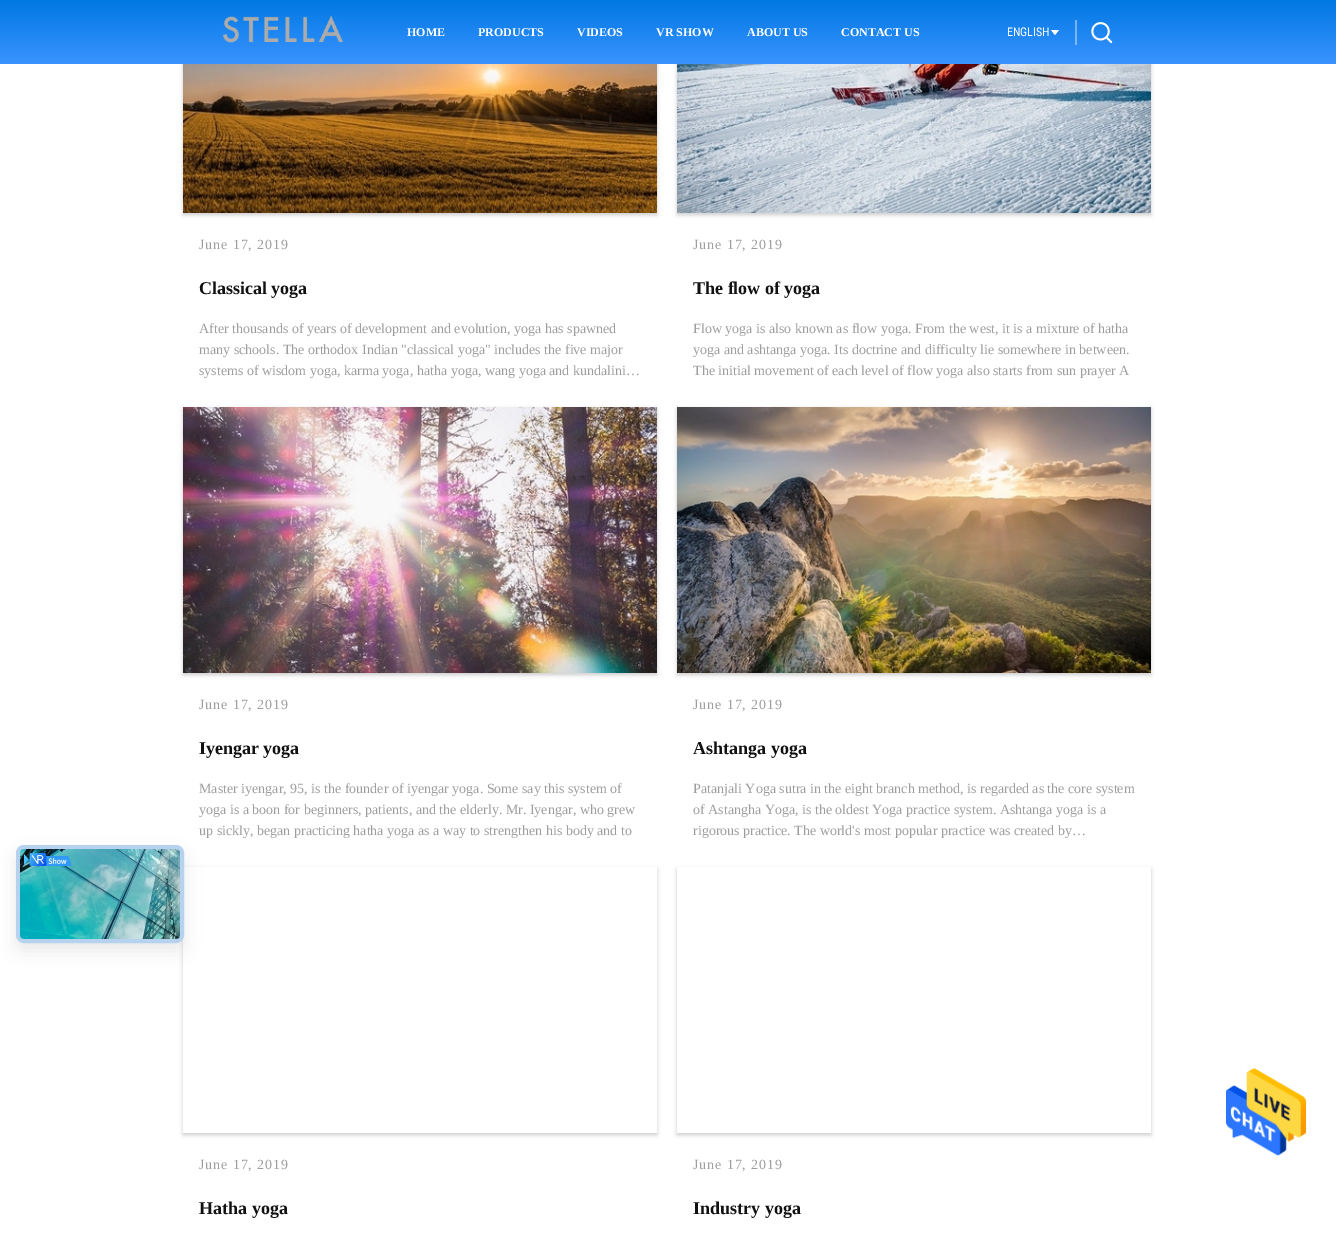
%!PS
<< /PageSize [1336 1233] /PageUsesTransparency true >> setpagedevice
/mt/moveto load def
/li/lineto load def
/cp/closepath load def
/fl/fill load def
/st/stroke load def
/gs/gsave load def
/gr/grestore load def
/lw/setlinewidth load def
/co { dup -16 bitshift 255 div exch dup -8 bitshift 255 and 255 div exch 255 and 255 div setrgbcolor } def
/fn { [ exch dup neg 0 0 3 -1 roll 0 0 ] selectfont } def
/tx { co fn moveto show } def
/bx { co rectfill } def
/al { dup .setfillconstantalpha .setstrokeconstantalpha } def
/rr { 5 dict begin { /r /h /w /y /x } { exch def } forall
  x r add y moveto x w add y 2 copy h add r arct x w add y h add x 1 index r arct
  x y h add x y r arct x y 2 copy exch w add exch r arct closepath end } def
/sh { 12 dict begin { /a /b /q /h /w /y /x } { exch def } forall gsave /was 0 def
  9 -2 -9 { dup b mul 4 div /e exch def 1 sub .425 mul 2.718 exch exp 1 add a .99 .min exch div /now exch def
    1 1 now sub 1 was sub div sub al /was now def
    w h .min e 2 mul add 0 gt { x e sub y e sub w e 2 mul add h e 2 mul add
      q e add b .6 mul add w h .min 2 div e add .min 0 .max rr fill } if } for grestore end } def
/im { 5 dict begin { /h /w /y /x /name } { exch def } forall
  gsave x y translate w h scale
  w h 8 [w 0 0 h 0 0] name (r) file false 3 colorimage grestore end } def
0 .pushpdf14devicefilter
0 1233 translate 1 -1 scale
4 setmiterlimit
0 0 1336 1233 16#FFFFFF bx
16#000000 co
183 -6 474 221 0 2 .2 sh
677 -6 474 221 0 2 .2 sh
gs 0 0 mt 1336 0 li 1336 64 li 0 64 li cp clip newpath
<< /ShadingType 2 /ColorSpace /DeviceRGB /Coords [668 0 668 64] /Extend [true true] /Function << /FunctionType 2 /Domain [0 1] /C0 [0 .471 .886] /C1 [.227 .576 1] /N 1 >> >> shfill gr
(media/1.raw) 222 15 121 28 im
16#FFFFFF co
1051 30 mt 1059 30 li 1055 35 li cp fl
0.4 al
1075 20 2 25 16#FFFFFF bx
1 al
(media/2.raw) 1091 22 22 22 im
16#000000 co
16 853 168 98 8 8 .08 sh
gs
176 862 mt 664 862 li 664 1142 li 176 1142 li cp 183 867 mt 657 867 li 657 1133 li 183 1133 li cp eoclip newpath
183 869 474 266 0 2 .2 sh
gr
16#EEEEEE co
16 845 168 98 8 rr fl
0.24 al
16#0478ED co
4 lw
18 847 164 94 6 rr st
1 al
(media/3.raw) 20 849 160 90 im
(media/4.raw) 24 853 48 13 im
(media/5.raw) 183 64 474 149 im
(media/6.raw) 677 64 474 149 im
16#000000 co
183 409 474 266 0 2 .2 sh
(media/7.raw) 183 407 474 266 im
677 409 474 266 0 2 .2 sh
(media/8.raw) 677 407 474 266 im
gs
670 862 mt 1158 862 li 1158 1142 li 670 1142 li cp 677 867 mt 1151 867 li 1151 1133 li 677 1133 li cp eoclip newpath
677 869 474 266 0 2 .2 sh
gr
(media/9.raw) 1226 1068 80 88 im
(HOME) 407 36 /LiberationSerif-Bold 12 16#FFFFFF tx
(PRODUCTS) 478 36 /LiberationSerif-Bold 12 16#FFFFFF tx
(VIDEOS) 577 36 /LiberationSerif-Bold 12 16#FFFFFF tx
(VR SHOW) 656 36 /LiberationSerif-Bold 12 16#FFFFFF tx
(ABOUT US) 747 36 /LiberationSerif-Bold 12 16#FFFFFF tx
(CONTACT US) 841 36 /LiberationSerif-Bold 12 16#FFFFFF tx
(ENGLISH) 1007 36 /RobotoCondensed-Regular 12 16#FFFFFF tx
/LiberationSerif-Regular 14 fn
16#9D9D9D co
199 249 mt .9 0 (June 17, 2019) ashow
(Classical yoga) 199 294 /LiberationSerif-Bold 18 16#111111 tx
(After thousands of years of development and evolution, yoga has spawned) 199 333 /LiberationSerif-Regular 14 16#9D9D9D tx
(many schools. The orthodox Indian "classical yoga" includes the five major) 199 354 /LiberationSerif-Regular 14 16#9D9D9D tx
(systems of wisdom yoga, karma yoga, hatha yoga, wang yoga and kundalini…) 199 375 /LiberationSerif-Regular 14 16#9D9D9D tx
693 249 mt .9 0 (June 17, 2019) ashow
(The flow of yoga) 693 294 /LiberationSerif-Bold 18 16#111111 tx
(Flow yoga is also known as flow yoga. From the west, it is a mixture of hatha) 693 333 /LiberationSerif-Regular 14 16#9D9D9D tx
(yoga and ashtanga yoga. Its doctrine and difficulty lie somewhere in between.) 693 354 /LiberationSerif-Regular 14 16#9D9D9D tx
(The initial movement of each level of flow yoga also starts from sun prayer A) 693 375 /LiberationSerif-Regular 14 16#9D9D9D tx
199 709 mt .9 0 (June 17, 2019) ashow
(Iyengar yoga) 199 754 /LiberationSerif-Bold 18 16#111111 tx
(Master iyengar, 95, is the founder of iyengar yoga. Some say this system of) 199 793 /LiberationSerif-Regular 14 16#9D9D9D tx
(yoga is a boon for beginners, patients, and the elderly. Mr. Iyengar, who grew) 199 814 /LiberationSerif-Regular 14 16#9D9D9D tx
(up sickly, began practicing hatha yoga as a way to strengthen his body and to) 199 835 /LiberationSerif-Regular 14 16#9D9D9D tx
693 709 mt .9 0 (June 17, 2019) ashow
(Ashtanga yoga) 693 754 /LiberationSerif-Bold 18 16#111111 tx
(Patanjali Yoga sutra in the eight branch method, is regarded as the core system) 693 793 /LiberationSerif-Regular 14 16#9D9D9D tx
(of Astangha Yoga, is the oldest Yoga practice system. Ashtanga yoga is a) 693 814 /LiberationSerif-Regular 14 16#9D9D9D tx
(rigorous practice. The world's most popular practice was created by…) 693 835 /LiberationSerif-Regular 14 16#9D9D9D tx
199 1169 mt .9 0 (June 17, 2019) ashow
(Hatha yoga) 199 1214 /LiberationSerif-Bold 18 16#111111 tx
/LiberationSerif-Regular 14 fn
16#9D9D9D co
693 1169 mt .9 0 (June 17, 2019) ashow
(Industry yoga) 693 1214 /LiberationSerif-Bold 18 16#111111 tx
.poppdf14devicefilter showpage
